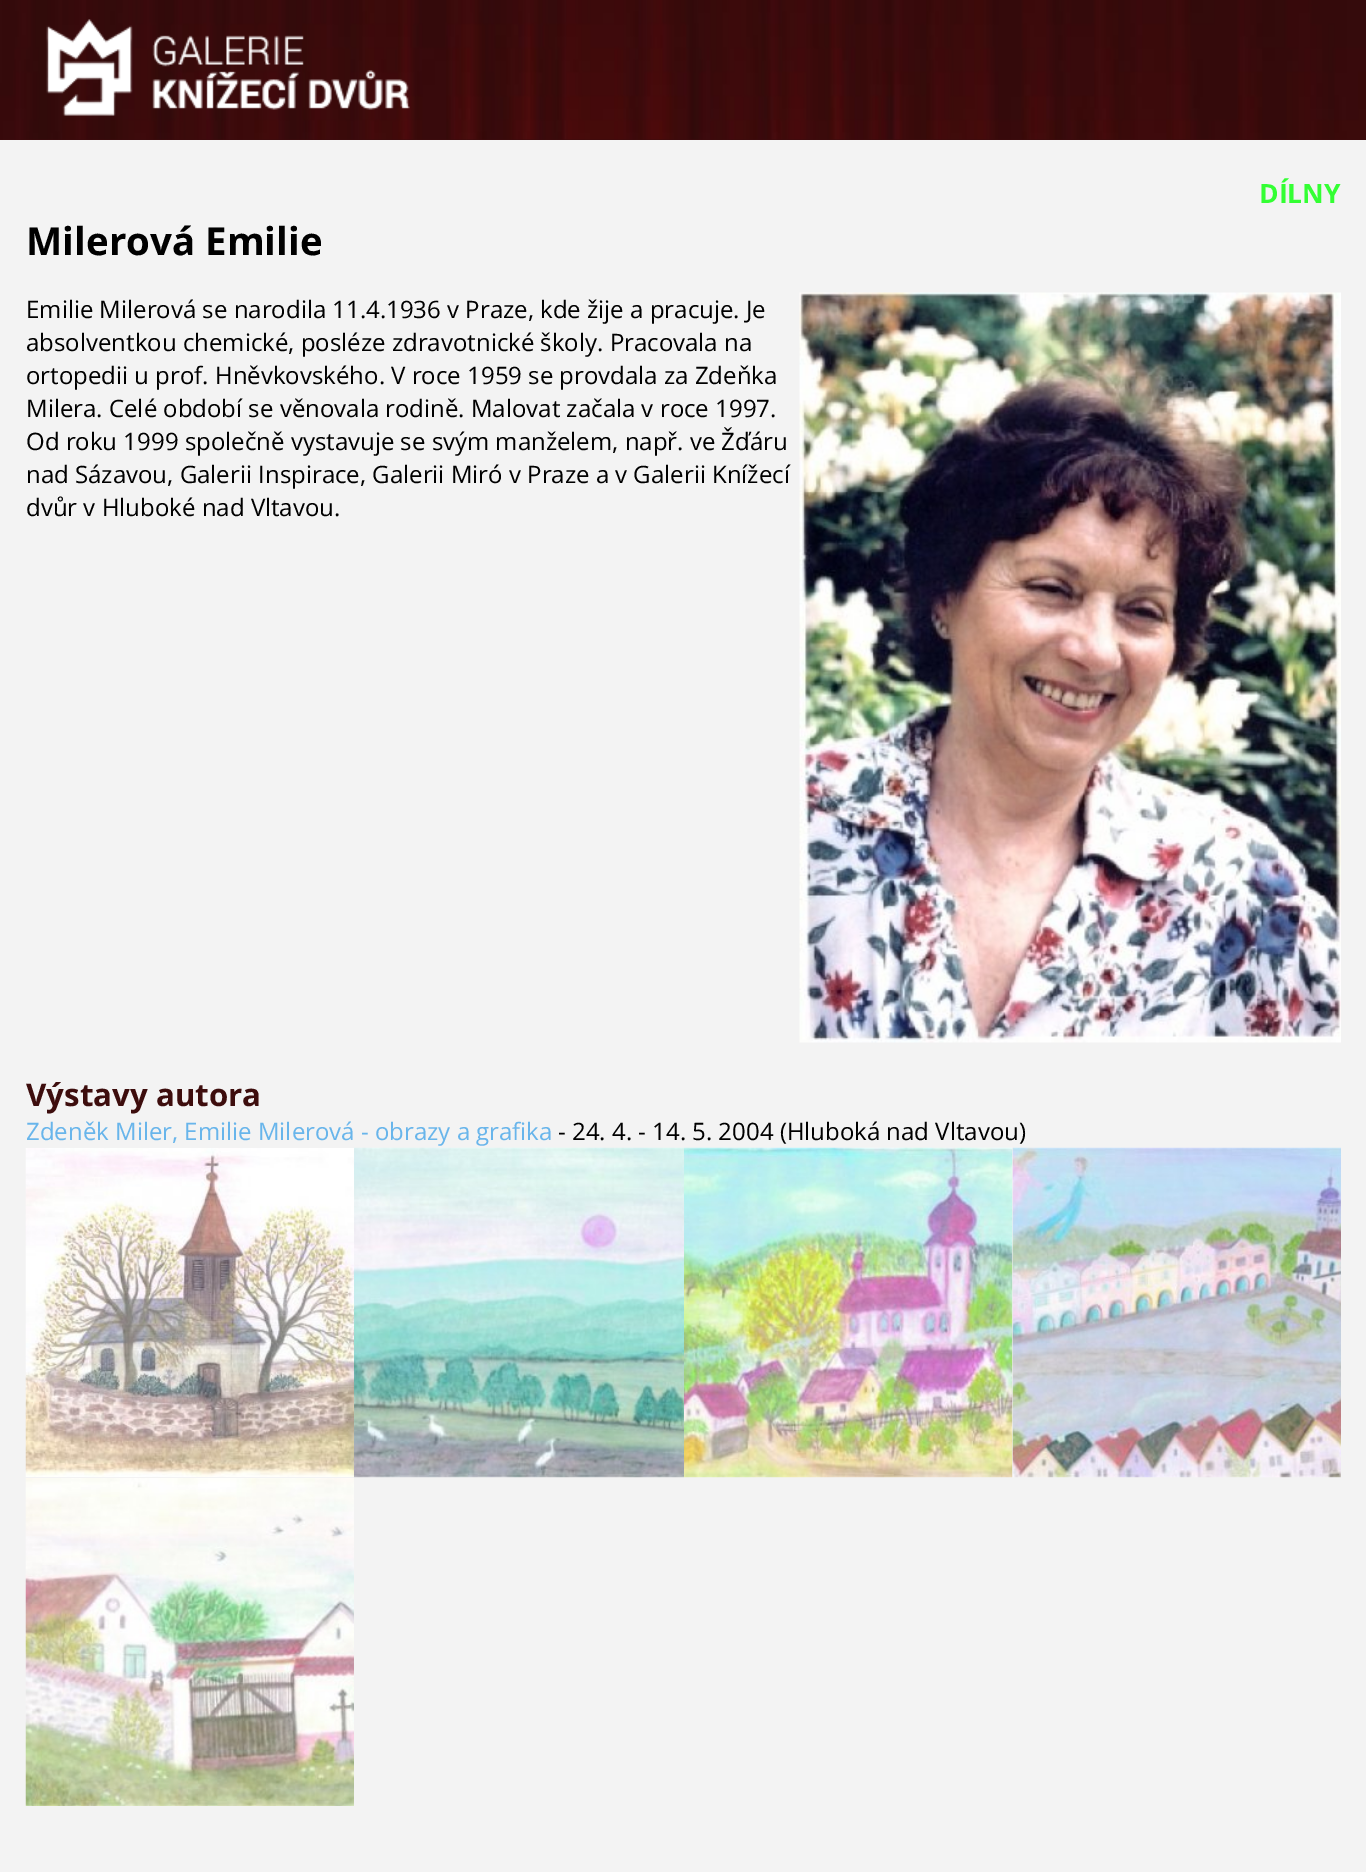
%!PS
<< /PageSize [1366 1872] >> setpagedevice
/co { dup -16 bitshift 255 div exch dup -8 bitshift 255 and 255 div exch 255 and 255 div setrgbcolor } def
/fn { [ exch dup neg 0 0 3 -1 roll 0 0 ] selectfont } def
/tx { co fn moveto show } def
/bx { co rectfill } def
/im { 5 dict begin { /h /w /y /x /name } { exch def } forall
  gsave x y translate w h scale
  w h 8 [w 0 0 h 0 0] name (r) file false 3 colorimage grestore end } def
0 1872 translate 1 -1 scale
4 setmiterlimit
0 0 1366 1872 16#3C0D0E bx
(media/1.raw) 0 0 1366 140 im
(media/2.raw) 46 19 364 97 im
0 140 1366 1732 16#F3F3F3 bx
(media/3.raw) 799 292 542 751 im
(media/4.raw) 25 1148 329 329 im
(media/5.raw) 354 1147 330 331 im
(media/6.raw) 684 1147 329 331 im
(media/7.raw) 1012 1147 329 331 im
(media/8.raw) 25 1478 329 328 im
(DÍLNY) 1259 203 /OpenSans-Bold 26.5 16#33FF33 tx
(Milerová Emilie) 26 255 /OpenSans-Bold 38.5 16#000000 tx
(Emilie Milerová se narodila 11.4.1936 v Praze, kde žije a pracuje. Je) 26 318 /OpenSans-Regular 24 16#000000 tx
(absolventkou chemické, posléze zdravotnické školy. Pracovala na) 26 351 /OpenSans-Regular 24 16#000000 tx
(ortopedii u prof. Hněvkovského. V roce 1959 se provdala za Zdeňka) 26 384 /OpenSans-Regular 24 16#000000 tx
(Milera. Celé období se věnovala rodině. Malovat začala v roce 1997.) 26 417 /OpenSans-Regular 24 16#000000 tx
(Od roku 1999 společně vystavuje se svým manželem, např. ve Žďáru) 26 450 /OpenSans-Regular 24 16#000000 tx
(nad Sázavou, Galerii Inspirace, Galerii Miró v Praze a v Galerii Knížecí) 26 483 /OpenSans-Regular 24 16#000000 tx
(dvůr v Hluboké nad Vltavou.) 26 516 /OpenSans-Regular 24 16#000000 tx
(Výstavy autora) 26 1106 /OpenSans-Bold 31.25 16#3D0D0D tx
(Zdeněk Miler, Emilie Milerová - obrazy a grafika) 26 1140 /OpenSans-Regular 24 16#68B5EB tx
(- 24. 4. - 14. 5. 2004 \(Hluboká nad Vltavou\)) 558 1140 /OpenSans-Regular 24 16#000000 tx
showpage
